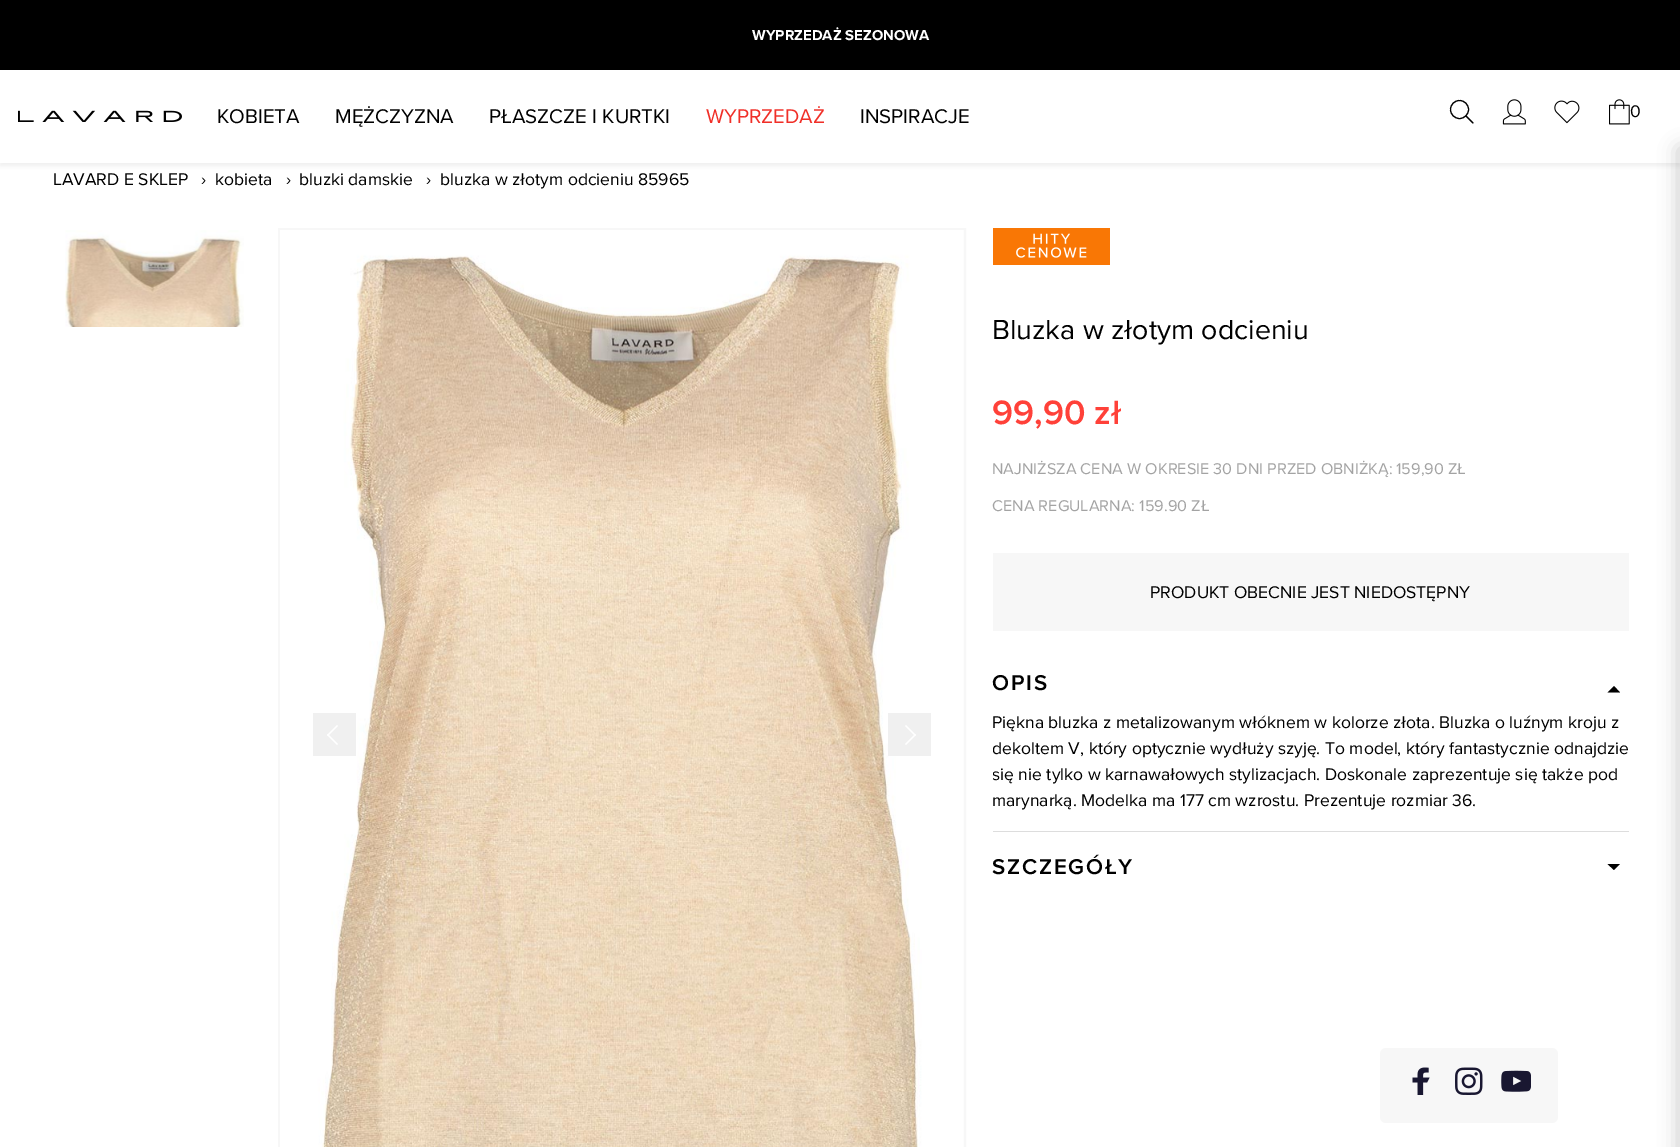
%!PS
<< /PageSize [1680 1147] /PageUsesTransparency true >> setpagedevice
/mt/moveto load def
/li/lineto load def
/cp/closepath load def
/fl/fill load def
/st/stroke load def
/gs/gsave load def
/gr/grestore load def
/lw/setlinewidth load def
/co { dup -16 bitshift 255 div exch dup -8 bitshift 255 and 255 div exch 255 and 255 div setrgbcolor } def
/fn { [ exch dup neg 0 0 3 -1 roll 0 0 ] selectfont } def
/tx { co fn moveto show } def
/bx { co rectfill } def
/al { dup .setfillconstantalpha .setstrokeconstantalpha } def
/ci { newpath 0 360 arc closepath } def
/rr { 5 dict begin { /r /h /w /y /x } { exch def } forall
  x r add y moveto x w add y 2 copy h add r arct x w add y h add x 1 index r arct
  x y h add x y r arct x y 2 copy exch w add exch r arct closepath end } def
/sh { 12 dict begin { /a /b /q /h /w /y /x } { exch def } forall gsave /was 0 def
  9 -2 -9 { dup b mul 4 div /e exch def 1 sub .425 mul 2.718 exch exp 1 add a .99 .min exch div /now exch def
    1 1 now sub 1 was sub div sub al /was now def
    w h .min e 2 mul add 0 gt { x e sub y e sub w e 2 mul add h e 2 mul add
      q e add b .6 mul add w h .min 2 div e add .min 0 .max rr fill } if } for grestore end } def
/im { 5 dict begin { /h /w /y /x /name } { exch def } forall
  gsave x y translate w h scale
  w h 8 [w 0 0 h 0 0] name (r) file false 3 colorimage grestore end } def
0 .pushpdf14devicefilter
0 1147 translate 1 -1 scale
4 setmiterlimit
0 0 1680 1147 16#FFFFFF bx
gs
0 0 mt 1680 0 li 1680 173 li 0 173 li cp 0 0 mt 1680 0 li 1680 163 li 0 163 li cp eoclip newpath
16#B1B1B1 co
0 4 1680 162 0 2 .2 sh
gr
0.97 al
0 162 1680 1 16#FFFFFF bx
1 al
0 0 1680 70 16#000000 bx
(media/1.raw) 18 110 164 12 im
1.1 lw
1 setlinecap
1 setlinejoin
1473 123 mt 1466 116 li st
0 setlinecap
0 setlinejoin
1459.5 109.5 9 ci st
(media/2.raw) 1502 99 24 26 im
(media/3.raw) 1554 100 26 24 im
(media/4.raw) 1609 99 21 26 im
1678 148 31 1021 0 9.5 .21 sh
(media/5.raw) 65 230 179 97 im
16#F7F7F7 co
3 lw
279.5 229.5 685 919 rectstroke
(media/6.raw) 280 230 684 917 im
313 713 43 43 16#F0F0F0 bx
16#FFFFFF co
327 735 mt 337 725 li 338 726 li 328 736 li cp fl
327 735 mt 328 734 li 338 744 li 337 745 li cp fl
888 713 43 43 16#F0F0F0 bx
16#FFFFFF co
906 725 mt 916 735 li 915 736 li 905 726 li cp fl
915 734 mt 916 735 li 906 745 li 905 744 li cp fl
(media/7.raw) 993 228 117 37 im
993 553 636 78 16#F7F7F7 bx
993 831 636 1 16#DDDDDD bx
16#000000 co
1620 692.5 mt 1607.5 692.5 li 1614 686 li cp fl
1607.5 864 mt 1620 864 li 1614 870 li cp fl
16#F7F7F7 co
1380 1048 178 75 6 rr fl
(media/8.raw) 1412 1067 18 28 im
(media/9.raw) 1455 1067 28 28 im
(media/10.raw) 1501 1070 30 22 im
(WYPRZEDAŻ SEZONOWA) 752 40 /ProximaNova-Bold 14.9 16#FFFFFF tx
(KOBIETA) 217 123 /ProximaNova-Regular 20.5 16#000000 tx
(MĘŻCZYZNA) 335 123 /ProximaNova-Regular 20.5 16#000000 tx
(PŁASZCZE I KURTKI) 489 123 /ProximaNova-Regular 20.5 16#000000 tx
(WYPRZEDAŻ) 706 123 /ProximaNova-Regular 20.5 16#F02F28 tx
(INSPIRACJE) 860 123 /ProximaNova-Regular 20.5 16#000000 tx
(0) 1630 117 /ProximaNova-Regular 17.5 16#000000 tx
(LAVARD E SKLEP) 53 185 /ProximaNova-Regular 17.5 16#000000 tx
(›) 201 185 /ProximaNova-Regular 17.5 16#000000 tx
(kobieta) 215 185 /ProximaNova-Regular 17.5 16#000000 tx
(›) 286 185 /ProximaNova-Regular 17.5 16#000000 tx
(bluzki damskie) 299 185 /ProximaNova-Regular 17.5 16#000000 tx
(›) 426 185 /ProximaNova-Regular 17.5 16#000000 tx
(bluzka w złotym odcieniu 85965) 440 185 /ProximaNova-Regular 17.5 16#000000 tx
(Bluzka w złotym odcieniu) 992 339 /ProximaNova-Regular 28.5 16#000000 tx
(99,90 zł) 992 424 /ProximaNova-SemiBold 35 16#FF4139 tx
(NAJNIŻSZA CENA W OKRESIE 30 DNI PRZED OBNIŻKĄ:) 992 474 /ProximaNova-Regular 16.2 16#A3A3A3 tx
(159,90 ZŁ) 1396 474 /ProximaNova-Regular 16.2 16#A3A3A3 tx
(CENA REGULARNA: 159.90 ZŁ) 992 511 /ProximaNova-Regular 16.2 16#A3A3A3 tx
(PRODUKT OBECNIE JEST NIEDOSTĘPNY) 1150 598 /ProximaNova-Regular 17.5 16#000000 tx
/ProximaNova-SemiBold 22.25 fn
992 690 mt 1.75 0 (OPIS) ashow
(Piękna bluzka z metalizowanym włóknem w kolorze złota. Bluzka o luźnym kroju z) 992 728 /ProximaNova-Regular 17.5 16#000000 tx
gs
993 700 636 114 rectclip
(dekoltem V, który optycznie wydłuży szyję. To model, który fantastycznie odnajdzie) 992 754 /ProximaNova-Regular 17.5 16#000000 tx
(się nie tylko w karnawałowych stylizacjach. Doskonale zaprezentuje się także pod) 992 780 /ProximaNova-Regular 17.5 16#000000 tx
gr
(marynarką. Modelka ma 177 cm wzrostu. Prezentuje rozmiar 36.) 992 806 /ProximaNova-Regular 17.5 16#000000 tx
/ProximaNova-SemiBold 22.25 fn
992 874 mt 1.75 0 (SZCZEGÓŁY) ashow
.poppdf14devicefilter showpage
